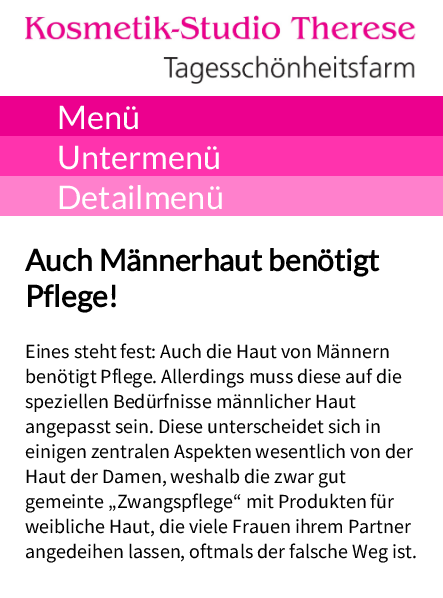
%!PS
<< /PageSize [443 598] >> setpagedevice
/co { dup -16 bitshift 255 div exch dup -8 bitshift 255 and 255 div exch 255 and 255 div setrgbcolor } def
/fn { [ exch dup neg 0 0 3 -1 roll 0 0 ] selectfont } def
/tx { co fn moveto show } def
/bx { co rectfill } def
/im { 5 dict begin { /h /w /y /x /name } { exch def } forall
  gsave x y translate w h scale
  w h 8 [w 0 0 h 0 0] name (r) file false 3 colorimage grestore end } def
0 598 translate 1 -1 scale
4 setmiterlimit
0 0 443 598 16#FFFFFF bx
(media/1.raw) 25 15 391 69 im
0 96 443 40 16#EC008E bx
0 136 443 40 16#FF33AD bx
0 176 443 40 16#FF80CC bx
(Menü) 57 129 /Lato-Regular 32.5 16#FFFFFF tx
(Untermenü) 57 169 /Lato-Regular 32.5 16#FFFFFF tx
(Detailmenü) 57 209 /Lato-Regular 32.5 16#FFFFFF tx
(Auch Männerhaut benötigt) 25 271 /Lato-Bold 30 16#000000 tx
(Pflege!) 25 307 /Lato-Bold 30 16#000000 tx
(Eines steht fest: Auch die Haut von Männern) 25 358 /SourceSansPro-Regular 20 16#000000 tx
(benötigt Pflege. Allerdings muss diese auf die) 25 383 /SourceSansPro-Regular 20 16#000000 tx
(speziellen Bedürfnisse männlicher Haut) 25 408 /SourceSansPro-Regular 20 16#000000 tx
(angepasst sein. Diese unterscheidet sich in) 25 433 /SourceSansPro-Regular 20 16#000000 tx
(einigen zentralen Aspekten wesentlich von der) 25 458 /SourceSansPro-Regular 20 16#000000 tx
(Haut der Damen, weshalb die zwar gut) 25 483 /SourceSansPro-Regular 20 16#000000 tx
(gemeinte „Zwangspflege“ mit Produkten für) 25 508 /SourceSansPro-Regular 20 16#000000 tx
(weibliche Haut, die viele Frauen ihrem Partner) 25 533 /SourceSansPro-Regular 20 16#000000 tx
(angedeihen lassen, oftmals der falsche Weg ist.) 25 558 /SourceSansPro-Regular 20 16#000000 tx
showpage
